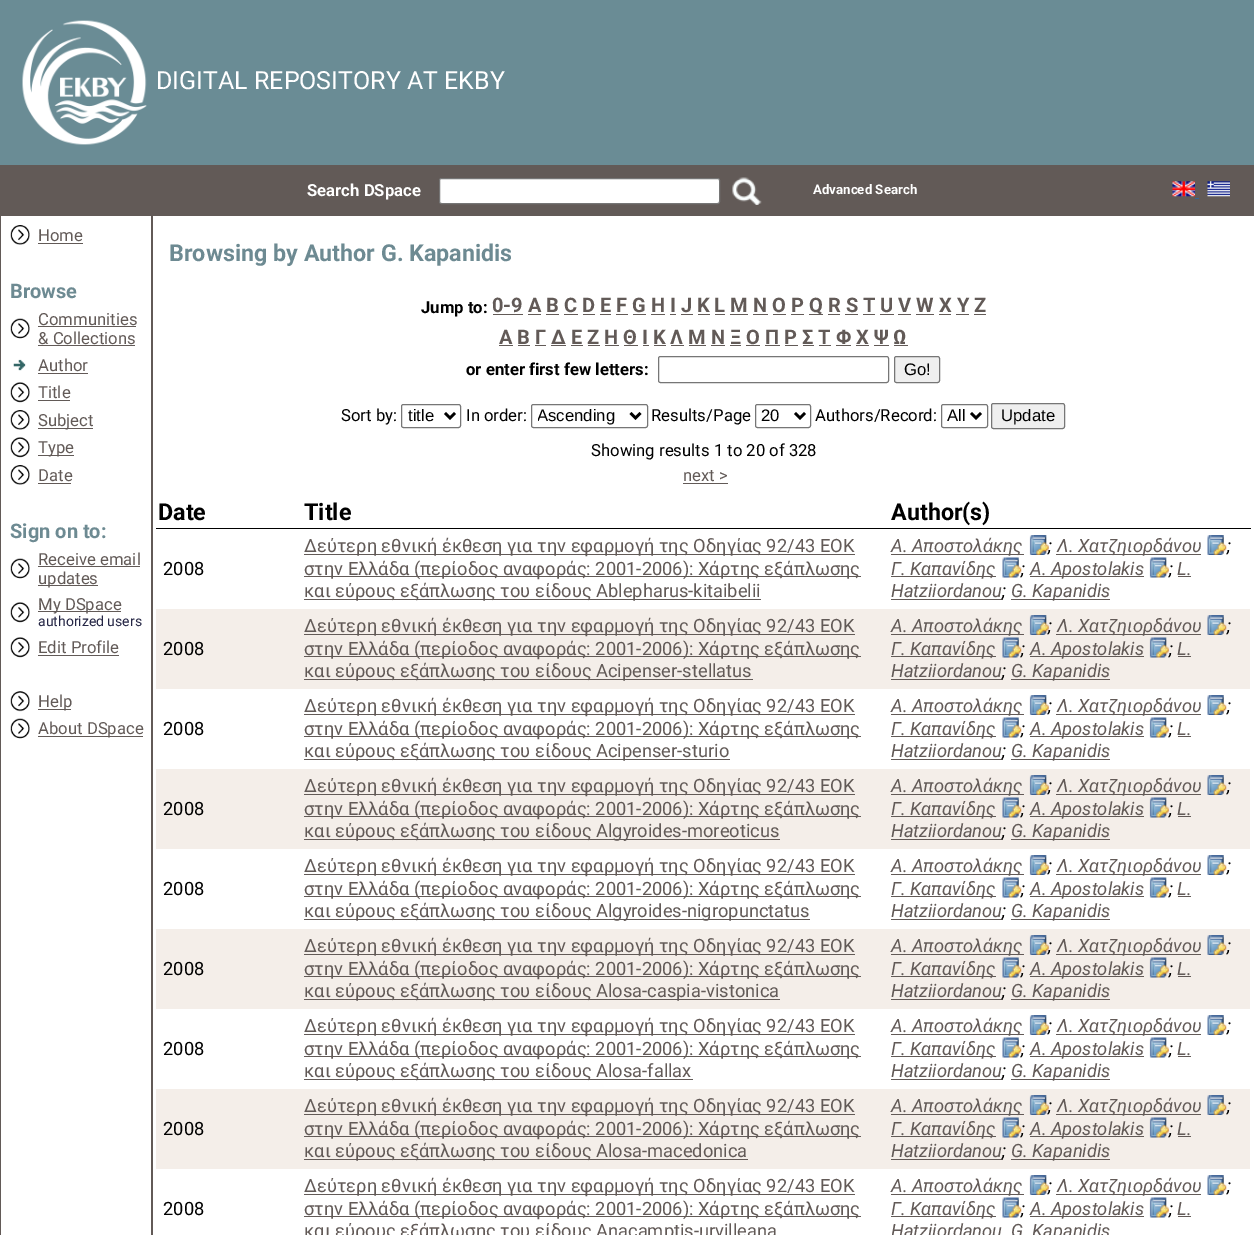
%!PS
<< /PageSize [1254 1235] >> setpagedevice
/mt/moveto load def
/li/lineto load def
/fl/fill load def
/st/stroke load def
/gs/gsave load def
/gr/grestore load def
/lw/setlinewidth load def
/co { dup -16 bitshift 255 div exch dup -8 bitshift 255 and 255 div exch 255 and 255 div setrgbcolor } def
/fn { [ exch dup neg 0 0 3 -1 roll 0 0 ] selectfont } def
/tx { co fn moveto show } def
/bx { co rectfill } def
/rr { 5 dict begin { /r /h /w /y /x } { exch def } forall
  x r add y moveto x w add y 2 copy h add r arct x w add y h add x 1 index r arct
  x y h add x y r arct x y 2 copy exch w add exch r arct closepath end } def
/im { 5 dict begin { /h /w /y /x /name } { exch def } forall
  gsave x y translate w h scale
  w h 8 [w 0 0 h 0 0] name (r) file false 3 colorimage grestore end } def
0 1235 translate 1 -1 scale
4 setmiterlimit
0 0 1254 1235 16#625A57 bx
0 0 1254 165 16#6A8C95 bx
(media/1.raw) 22 20 125 125 im
16#FFFFFF co
439.5 178.5 280 25 2 rr gs fl gr
16#767676 co
st
(media/2.raw) 732 177 30 28 im
(media/3.raw) 1172 181 23 16 im
(media/4.raw) 1207 181 23 16 im
1195 198 4 1 16#336699 bx
1 216 150 1019 16#FFFFFF bx
(media/5.raw) 10 225 20 20 im
38 243 45 1 16#625A57 bx
(media/6.raw) 10 318 20 21 im
38 326 98 1 16#625A57 bx
38 345 97 1 16#625A57 bx
(media/7.raw) 13 359 13 12 im
38 373 50 1 16#625A57 bx
(media/8.raw) 10 382 20 21 im
38 400 32 1 16#625A57 bx
(media/5.raw) 10 410 20 20 im
38 428 55 1 16#625A57 bx
(media/8.raw) 10 437 20 21 im
38 455 36 1 16#625A57 bx
(media/5.raw) 10 465 20 20 im
38 483 33 1 16#625A57 bx
(media/6.raw) 10 558 20 21 im
38 566 102 1 16#625A57 bx
38 585 60 1 16#625A57 bx
(media/8.raw) 10 602 20 21 im
38 611 83 1 16#625A57 bx
(media/8.raw) 10 637 20 21 im
38 655 81 1 16#625A57 bx
(media/9.raw) 10 691 20 21 im
38 709 33 1 16#625A57 bx
(media/6.raw) 10 718 20 21 im
38 736 105 1 16#625A57 bx
153 216 1101 1019 16#FFFFFF bx
493 314 30 1 16#625A57 bx
809 314 14 1 16#625A57 bx
528 314 13 1 16#625A57 bx
546 314 13 1 16#625A57 bx
564 314 14 1 16#625A57 bx
583 314 12 1 16#625A57 bx
600 314 11 1 16#625A57 bx
616 314 12 1 16#625A57 bx
633 314 13 1 16#625A57 bx
651 314 14 1 16#625A57 bx
670 314 6 1 16#625A57 bx
681 314 12 1 16#625A57 bx
698 314 12 1 16#625A57 bx
715 314 10 1 16#625A57 bx
730 314 18 1 16#625A57 bx
753 314 15 1 16#625A57 bx
773 314 13 1 16#625A57 bx
791 314 13 1 16#625A57 bx
828 314 12 1 16#625A57 bx
845 314 13 1 16#625A57 bx
863 314 12 1 16#625A57 bx
880 314 14 1 16#625A57 bx
898 314 13 1 16#625A57 bx
916 314 18 1 16#625A57 bx
939 314 12 1 16#625A57 bx
956 314 13 1 16#625A57 bx
974 314 12 1 16#625A57 bx
499 345 14 1 16#625A57 bx
518 345 12 1 16#625A57 bx
535 345 11 1 16#625A57 bx
551 345 15 1 16#625A57 bx
571 345 12 1 16#625A57 bx
588 345 12 1 16#625A57 bx
605 345 14 1 16#625A57 bx
624 345 14 1 16#625A57 bx
643 345 6 1 16#625A57 bx
654 345 12 1 16#625A57 bx
671 345 13 1 16#625A57 bx
689 345 17 1 16#625A57 bx
711 345 14 1 16#625A57 bx
730 345 11 1 16#625A57 bx
746 345 14 1 16#625A57 bx
765 345 15 1 16#625A57 bx
785 345 13 1 16#625A57 bx
803 345 11 1 16#625A57 bx
819 345 12 1 16#625A57 bx
836 345 15 1 16#625A57 bx
856 345 13 1 16#625A57 bx
874 345 15 1 16#625A57 bx
894 345 14 1 16#625A57 bx
16#767676 co
658.5 356.5 230 26 2 rr st
16#EFEFEF co
894.5 356.5 45 26 2 rr gs fl gr
16#767676 co
st
401.5 404.5 59 23 2 rr st
16#000000 co
2.5 lw
445 413 mt 450 418 li 455 413 li st
16#767676 co
1 lw
531.5 404.5 116 23 2 rr st
16#000000 co
2.5 lw
630.5 413 mt 635.5 418 li 640.5 413 li st
16#767676 co
1 lw
755.5 404.5 55 23 2 rr st
16#000000 co
2.5 lw
795 413 mt 800 418 li 805 413 li st
16#767676 co
1 lw
941.5 404.5 46 23 2 rr st
16#000000 co
2.5 lw
971 413 mt 976 418 li 981 413 li st
16#EFEFEF co
991.5 403.5 73 25 2 rr gs fl gr
16#767676 co
1 lw
st
683 483 45 1 16#625A57 bx
156 528 1095 1 16#000000 bx
304 554 551 1 16#625A57 bx
304 576 557 1 16#625A57 bx
304 599 457 1 16#625A57 bx
891 554 133 1 16#625A57 bx
(media/10.raw) 1029 535 20 20 im
1056 554 145 1 16#625A57 bx
(media/11.raw) 1207 535 20 20 im
891 576 105 1 16#625A57 bx
(media/12.raw) 1002 557 20 21 im
1030 576 114 1 16#625A57 bx
(media/13.raw) 1149 557 20 21 im
1178 576 13 1 16#625A57 bx
891 599 112 1 16#625A57 bx
1011 599 99 1 16#625A57 bx
156 609 1094 80 16#F4EEE9 bx
304 634 551 1 16#625A57 bx
304 656 557 1 16#625A57 bx
304 679 449 1 16#625A57 bx
891 634 133 1 16#625A57 bx
(media/14.raw) 1029 615 20 20 im
1056 634 145 1 16#625A57 bx
(media/15.raw) 1207 615 20 20 im
891 656 105 1 16#625A57 bx
(media/16.raw) 1002 637 20 21 im
1030 656 114 1 16#625A57 bx
(media/17.raw) 1149 637 20 21 im
1178 656 13 1 16#625A57 bx
891 679 112 1 16#625A57 bx
1011 679 99 1 16#625A57 bx
304 714 551 1 16#625A57 bx
304 736 557 1 16#625A57 bx
304 759 426 1 16#625A57 bx
891 714 133 1 16#625A57 bx
(media/10.raw) 1029 695 20 20 im
1056 714 145 1 16#625A57 bx
(media/11.raw) 1207 695 20 20 im
891 736 105 1 16#625A57 bx
(media/12.raw) 1002 717 20 21 im
1030 736 114 1 16#625A57 bx
(media/13.raw) 1149 717 20 21 im
1178 736 13 1 16#625A57 bx
891 759 112 1 16#625A57 bx
1011 759 99 1 16#625A57 bx
156 769 1094 80 16#F4EEE9 bx
304 794 551 1 16#625A57 bx
304 816 557 1 16#625A57 bx
304 839 476 1 16#625A57 bx
891 794 133 1 16#625A57 bx
(media/18.raw) 1029 775 20 20 im
1056 794 145 1 16#625A57 bx
(media/19.raw) 1207 775 20 20 im
891 816 105 1 16#625A57 bx
(media/16.raw) 1002 797 20 21 im
1030 816 114 1 16#625A57 bx
(media/17.raw) 1149 797 20 21 im
1178 816 13 1 16#625A57 bx
891 839 112 1 16#625A57 bx
1011 839 99 1 16#625A57 bx
304 874 551 1 16#625A57 bx
304 896 557 1 16#625A57 bx
304 919 506 1 16#625A57 bx
891 874 133 1 16#625A57 bx
(media/10.raw) 1029 855 20 20 im
1056 874 145 1 16#625A57 bx
(media/11.raw) 1207 855 20 20 im
891 896 105 1 16#625A57 bx
(media/12.raw) 1002 877 20 21 im
1030 896 114 1 16#625A57 bx
(media/13.raw) 1149 877 20 21 im
1178 896 13 1 16#625A57 bx
891 919 112 1 16#625A57 bx
1011 919 99 1 16#625A57 bx
156 929 1094 80 16#F4EEE9 bx
304 954 551 1 16#625A57 bx
304 976 557 1 16#625A57 bx
304 999 476 1 16#625A57 bx
891 954 133 1 16#625A57 bx
(media/14.raw) 1029 935 20 20 im
1056 954 145 1 16#625A57 bx
(media/15.raw) 1207 935 20 20 im
891 976 105 1 16#625A57 bx
(media/16.raw) 1002 957 20 21 im
1030 976 114 1 16#625A57 bx
(media/17.raw) 1149 957 20 21 im
1178 976 13 1 16#625A57 bx
891 999 112 1 16#625A57 bx
1011 999 99 1 16#625A57 bx
304 1034 551 1 16#625A57 bx
304 1056 557 1 16#625A57 bx
304 1079 389 1 16#625A57 bx
891 1034 133 1 16#625A57 bx
(media/10.raw) 1029 1015 20 20 im
1056 1034 145 1 16#625A57 bx
(media/11.raw) 1207 1015 20 20 im
891 1056 105 1 16#625A57 bx
(media/12.raw) 1002 1037 20 21 im
1030 1056 114 1 16#625A57 bx
(media/13.raw) 1149 1037 20 21 im
1178 1056 13 1 16#625A57 bx
891 1079 112 1 16#625A57 bx
1011 1079 99 1 16#625A57 bx
156 1089 1094 80 16#F4EEE9 bx
304 1114 551 1 16#625A57 bx
304 1136 557 1 16#625A57 bx
304 1159 444 1 16#625A57 bx
891 1114 133 1 16#625A57 bx
(media/14.raw) 1029 1095 20 20 im
1056 1114 145 1 16#625A57 bx
(media/15.raw) 1207 1095 20 20 im
891 1136 105 1 16#625A57 bx
(media/16.raw) 1002 1117 20 21 im
1030 1136 114 1 16#625A57 bx
(media/17.raw) 1149 1117 20 21 im
1178 1136 13 1 16#625A57 bx
891 1159 112 1 16#625A57 bx
1011 1159 99 1 16#625A57 bx
304 1194 551 1 16#625A57 bx
304 1216 557 1 16#625A57 bx
891 1194 133 1 16#625A57 bx
(media/20.raw) 1029 1175 20 20 im
1056 1194 145 1 16#625A57 bx
(media/21.raw) 1207 1175 20 20 im
891 1216 105 1 16#625A57 bx
(media/12.raw) 1002 1197 20 21 im
1030 1216 114 1 16#625A57 bx
(media/13.raw) 1149 1197 20 21 im
1178 1216 13 1 16#625A57 bx
(DIGITAL REPOSITORY AT EKBY) 156 89 /Roboto-Regular 25 16#FFFFFF tx
(Search DSpace) 307 196 /Roboto-Bold 16.7 16#FFFFFF tx
(Advanced Search) 813 194 /Roboto-Bold 13.25 16#FFFFFF tx
(Home) 38 241 /Roboto-Regular 16.7 16#625A57 tx
(Browse) 10 298 /Roboto-Bold 20 16#6D8A92 tx
(Communities) 38 325 /Roboto-Regular 16.7 16#625A57 tx
(& Collections) 38 344 /Roboto-Regular 16.7 16#625A57 tx
(Author) 38 371 /Roboto-Regular 16.7 16#625A57 tx
(Title) 38 398 /Roboto-Regular 16.7 16#625A57 tx
(Subject) 38 426 /Roboto-Regular 16.7 16#625A57 tx
(Type) 38 453 /Roboto-Regular 16.7 16#625A57 tx
(Date) 38 481 /Roboto-Regular 16.7 16#625A57 tx
(Sign on to:) 10 538 /Roboto-Bold 20 16#6D8A92 tx
(Receive email) 38 565 /Roboto-Regular 16.7 16#625A57 tx
(updates) 38 584 /Roboto-Regular 16.7 16#625A57 tx
(My DSpace) 38 610 /Roboto-Regular 16.7 16#625A57 tx
(authorized users) 38 626 /Roboto-Regular 14 16#252645 tx
(Edit Profile) 38 653 /Roboto-Regular 16.7 16#625A57 tx
(Help) 38 707 /Roboto-Regular 16.7 16#625A57 tx
(About DSpace) 38 734 /Roboto-Regular 16.7 16#625A57 tx
(Browsing by Author G. Kapanidis) 169 261 /Roboto-Bold 23.3 16#6D8A92 tx
(Jump to:) 421 313 /Roboto-Bold 16.7 16#000000 tx
(0-9 A B C D E F G H I J K L M N O P) 492 312 /Roboto-Bold 20 16#625A57 tx
(Q R S T U V W X Y Z) 809 312 /Roboto-Bold 20 16#625A57 tx
(Α Β Γ Δ Ε Ζ Η Θ Ι Κ Λ Μ Ν Ξ Ο Π Ρ Σ Τ Φ Χ Ψ Ω) 499 344 /Roboto-Bold 20 16#625A57 tx
(or enter first few letters:) 466 375 /Roboto-Bold 16.7 16#000000 tx
(Go!) 904 375 /LiberationSans-Regular 16.7 16#000000 tx
(Sort by:) 341 421 /Roboto-Regular 16.7 16#000000 tx
(title) 408 421 /LiberationSans-Regular 16.7 16#000000 tx
(In order:) 466 421 /Roboto-Regular 16.7 16#000000 tx
gs
538 405 88 21 rectclip
(Ascending) 537 421 /LiberationSans-Regular 16.7 16#000000 tx
gr
(Results/Page) 651 421 /Roboto-Regular 16.7 16#000000 tx
(20) 761 421 /LiberationSans-Regular 16.7 16#000000 tx
(Authors/Record:) 815 421 /Roboto-Regular 16.7 16#000000 tx
(All) 947 421 /LiberationSans-Regular 16.7 16#000000 tx
(Update) 1001 421 /LiberationSans-Regular 16.7 16#000000 tx
(Showing results 1 to 20 of 328) 591 456 /Roboto-Regular 16.7 16#000000 tx
(next >) 683 481 /Roboto-Regular 16.7 16#625A57 tx
(Date) 158 520 /Roboto-Bold 23.3 16#000000 tx
(Title) 304 520 /Roboto-Bold 23.3 16#000000 tx
(Author\(s\)) 891 520 /Roboto-Bold 23.3 16#000000 tx
(2008) 163 575 /Roboto-Regular 18.3 16#000000 tx
(Δεύτερη εθνική έκθεση για την εφαρμογή της Οδηγίας 92/43 ΕΟΚ) 304 552 /Roboto-Regular 18.3 16#625A57 tx
(στην Ελλάδα \(περίοδος αναφοράς: 2001-2006\): Χάρτης εξάπλωσης) 304 575 /Roboto-Regular 18.3 16#625A57 tx
(και εύρους εξάπλωσης του είδους Ablepharus-kitaibelii) 304 597 /Roboto-Regular 18.3 16#625A57 tx
(Α. Αποστολάκης) 891 552 /Roboto-Italic 18.3 16#625A57 tx
(;) 1048 552 /Roboto-Italic 18.3 16#000000 tx
(Λ. Χατζηιορδάνου) 1057 552 /Roboto-Italic 18.3 16#625A57 tx
(;) 1227 552 /Roboto-Italic 18.3 16#000000 tx
(Γ. Καπανίδης) 891 575 /Roboto-Italic 18.3 16#625A57 tx
(;) 1021 575 /Roboto-Italic 18.3 16#000000 tx
(A. Apostolakis) 1030 575 /Roboto-Italic 18.3 16#625A57 tx
(;) 1169 575 /Roboto-Italic 18.3 16#000000 tx
(L.) 1177 575 /Roboto-Italic 18.3 16#625A57 tx
(Hatziiordanou) 891 597 /Roboto-Italic 18.3 16#625A57 tx
(;) 1002 597 /Roboto-Italic 18.3 16#000000 tx
(G. Kapanidis) 1011 597 /Roboto-Italic 18.3 16#625A57 tx
(2008) 163 655 /Roboto-Regular 18.3 16#000000 tx
(Δεύτερη εθνική έκθεση για την εφαρμογή της Οδηγίας 92/43 ΕΟΚ) 304 632 /Roboto-Regular 18.3 16#625A57 tx
(στην Ελλάδα \(περίοδος αναφοράς: 2001-2006\): Χάρτης εξάπλωσης) 304 655 /Roboto-Regular 18.3 16#625A57 tx
(και εύρους εξάπλωσης του είδους Acipenser-stellatus) 304 677 /Roboto-Regular 18.3 16#625A57 tx
(Α. Αποστολάκης) 891 632 /Roboto-Italic 18.3 16#625A57 tx
(;) 1048 632 /Roboto-Italic 18.3 16#000000 tx
(Λ. Χατζηιορδάνου) 1057 632 /Roboto-Italic 18.3 16#625A57 tx
(;) 1227 632 /Roboto-Italic 18.3 16#000000 tx
(Γ. Καπανίδης) 891 655 /Roboto-Italic 18.3 16#625A57 tx
(;) 1021 655 /Roboto-Italic 18.3 16#000000 tx
(A. Apostolakis) 1030 655 /Roboto-Italic 18.3 16#625A57 tx
(;) 1169 655 /Roboto-Italic 18.3 16#000000 tx
(L.) 1177 655 /Roboto-Italic 18.3 16#625A57 tx
(Hatziiordanou) 891 677 /Roboto-Italic 18.3 16#625A57 tx
(;) 1002 677 /Roboto-Italic 18.3 16#000000 tx
(G. Kapanidis) 1011 677 /Roboto-Italic 18.3 16#625A57 tx
(2008) 163 735 /Roboto-Regular 18.3 16#000000 tx
(Δεύτερη εθνική έκθεση για την εφαρμογή της Οδηγίας 92/43 ΕΟΚ) 304 712 /Roboto-Regular 18.3 16#625A57 tx
(στην Ελλάδα \(περίοδος αναφοράς: 2001-2006\): Χάρτης εξάπλωσης) 304 735 /Roboto-Regular 18.3 16#625A57 tx
(και εύρους εξάπλωσης του είδους Acipenser-sturio) 304 757 /Roboto-Regular 18.3 16#625A57 tx
(Α. Αποστολάκης) 891 712 /Roboto-Italic 18.3 16#625A57 tx
(;) 1048 712 /Roboto-Italic 18.3 16#000000 tx
(Λ. Χατζηιορδάνου) 1057 712 /Roboto-Italic 18.3 16#625A57 tx
(;) 1227 712 /Roboto-Italic 18.3 16#000000 tx
(Γ. Καπανίδης) 891 735 /Roboto-Italic 18.3 16#625A57 tx
(;) 1021 735 /Roboto-Italic 18.3 16#000000 tx
(A. Apostolakis) 1030 735 /Roboto-Italic 18.3 16#625A57 tx
(;) 1169 735 /Roboto-Italic 18.3 16#000000 tx
(L.) 1177 735 /Roboto-Italic 18.3 16#625A57 tx
(Hatziiordanou) 891 757 /Roboto-Italic 18.3 16#625A57 tx
(;) 1002 757 /Roboto-Italic 18.3 16#000000 tx
(G. Kapanidis) 1011 757 /Roboto-Italic 18.3 16#625A57 tx
(2008) 163 815 /Roboto-Regular 18.3 16#000000 tx
(Δεύτερη εθνική έκθεση για την εφαρμογή της Οδηγίας 92/43 ΕΟΚ) 304 792 /Roboto-Regular 18.3 16#625A57 tx
(στην Ελλάδα \(περίοδος αναφοράς: 2001-2006\): Χάρτης εξάπλωσης) 304 815 /Roboto-Regular 18.3 16#625A57 tx
(και εύρους εξάπλωσης του είδους Algyroides-moreoticus) 304 837 /Roboto-Regular 18.3 16#625A57 tx
(Α. Αποστολάκης) 891 792 /Roboto-Italic 18.3 16#625A57 tx
(;) 1048 792 /Roboto-Italic 18.3 16#000000 tx
(Λ. Χατζηιορδάνου) 1057 792 /Roboto-Italic 18.3 16#625A57 tx
(;) 1227 792 /Roboto-Italic 18.3 16#000000 tx
(Γ. Καπανίδης) 891 815 /Roboto-Italic 18.3 16#625A57 tx
(;) 1021 815 /Roboto-Italic 18.3 16#000000 tx
(A. Apostolakis) 1030 815 /Roboto-Italic 18.3 16#625A57 tx
(;) 1169 815 /Roboto-Italic 18.3 16#000000 tx
(L.) 1177 815 /Roboto-Italic 18.3 16#625A57 tx
(Hatziiordanou) 891 837 /Roboto-Italic 18.3 16#625A57 tx
(;) 1002 837 /Roboto-Italic 18.3 16#000000 tx
(G. Kapanidis) 1011 837 /Roboto-Italic 18.3 16#625A57 tx
(2008) 163 895 /Roboto-Regular 18.3 16#000000 tx
(Δεύτερη εθνική έκθεση για την εφαρμογή της Οδηγίας 92/43 ΕΟΚ) 304 872 /Roboto-Regular 18.3 16#625A57 tx
(στην Ελλάδα \(περίοδος αναφοράς: 2001-2006\): Χάρτης εξάπλωσης) 304 895 /Roboto-Regular 18.3 16#625A57 tx
(και εύρους εξάπλωσης του είδους Algyroides-nigropunctatus) 304 917 /Roboto-Regular 18.3 16#625A57 tx
(Α. Αποστολάκης) 891 872 /Roboto-Italic 18.3 16#625A57 tx
(;) 1048 872 /Roboto-Italic 18.3 16#000000 tx
(Λ. Χατζηιορδάνου) 1057 872 /Roboto-Italic 18.3 16#625A57 tx
(;) 1227 872 /Roboto-Italic 18.3 16#000000 tx
(Γ. Καπανίδης) 891 895 /Roboto-Italic 18.3 16#625A57 tx
(;) 1021 895 /Roboto-Italic 18.3 16#000000 tx
(A. Apostolakis) 1030 895 /Roboto-Italic 18.3 16#625A57 tx
(;) 1169 895 /Roboto-Italic 18.3 16#000000 tx
(L.) 1177 895 /Roboto-Italic 18.3 16#625A57 tx
(Hatziiordanou) 891 917 /Roboto-Italic 18.3 16#625A57 tx
(;) 1002 917 /Roboto-Italic 18.3 16#000000 tx
(G. Kapanidis) 1011 917 /Roboto-Italic 18.3 16#625A57 tx
(2008) 163 975 /Roboto-Regular 18.3 16#000000 tx
(Δεύτερη εθνική έκθεση για την εφαρμογή της Οδηγίας 92/43 ΕΟΚ) 304 952 /Roboto-Regular 18.3 16#625A57 tx
(στην Ελλάδα \(περίοδος αναφοράς: 2001-2006\): Χάρτης εξάπλωσης) 304 975 /Roboto-Regular 18.3 16#625A57 tx
(και εύρους εξάπλωσης του είδους Alosa-caspia-vistonica) 304 997 /Roboto-Regular 18.3 16#625A57 tx
(Α. Αποστολάκης) 891 952 /Roboto-Italic 18.3 16#625A57 tx
(;) 1048 952 /Roboto-Italic 18.3 16#000000 tx
(Λ. Χατζηιορδάνου) 1057 952 /Roboto-Italic 18.3 16#625A57 tx
(;) 1227 952 /Roboto-Italic 18.3 16#000000 tx
(Γ. Καπανίδης) 891 975 /Roboto-Italic 18.3 16#625A57 tx
(;) 1021 975 /Roboto-Italic 18.3 16#000000 tx
(A. Apostolakis) 1030 975 /Roboto-Italic 18.3 16#625A57 tx
(;) 1169 975 /Roboto-Italic 18.3 16#000000 tx
(L.) 1177 975 /Roboto-Italic 18.3 16#625A57 tx
(Hatziiordanou) 891 997 /Roboto-Italic 18.3 16#625A57 tx
(;) 1002 997 /Roboto-Italic 18.3 16#000000 tx
(G. Kapanidis) 1011 997 /Roboto-Italic 18.3 16#625A57 tx
(2008) 163 1055 /Roboto-Regular 18.3 16#000000 tx
(Δεύτερη εθνική έκθεση για την εφαρμογή της Οδηγίας 92/43 ΕΟΚ) 304 1032 /Roboto-Regular 18.3 16#625A57 tx
(στην Ελλάδα \(περίοδος αναφοράς: 2001-2006\): Χάρτης εξάπλωσης) 304 1055 /Roboto-Regular 18.3 16#625A57 tx
(και εύρους εξάπλωσης του είδους Alosa-fallax) 304 1077 /Roboto-Regular 18.3 16#625A57 tx
(Α. Αποστολάκης) 891 1032 /Roboto-Italic 18.3 16#625A57 tx
(;) 1048 1032 /Roboto-Italic 18.3 16#000000 tx
(Λ. Χατζηιορδάνου) 1057 1032 /Roboto-Italic 18.3 16#625A57 tx
(;) 1227 1032 /Roboto-Italic 18.3 16#000000 tx
(Γ. Καπανίδης) 891 1055 /Roboto-Italic 18.3 16#625A57 tx
(;) 1021 1055 /Roboto-Italic 18.3 16#000000 tx
(A. Apostolakis) 1030 1055 /Roboto-Italic 18.3 16#625A57 tx
(;) 1169 1055 /Roboto-Italic 18.3 16#000000 tx
(L.) 1177 1055 /Roboto-Italic 18.3 16#625A57 tx
(Hatziiordanou) 891 1077 /Roboto-Italic 18.3 16#625A57 tx
(;) 1002 1077 /Roboto-Italic 18.3 16#000000 tx
(G. Kapanidis) 1011 1077 /Roboto-Italic 18.3 16#625A57 tx
(2008) 163 1135 /Roboto-Regular 18.3 16#000000 tx
(Δεύτερη εθνική έκθεση για την εφαρμογή της Οδηγίας 92/43 ΕΟΚ) 304 1112 /Roboto-Regular 18.3 16#625A57 tx
(στην Ελλάδα \(περίοδος αναφοράς: 2001-2006\): Χάρτης εξάπλωσης) 304 1135 /Roboto-Regular 18.3 16#625A57 tx
(και εύρους εξάπλωσης του είδους Alosa-macedonica) 304 1157 /Roboto-Regular 18.3 16#625A57 tx
(Α. Αποστολάκης) 891 1112 /Roboto-Italic 18.3 16#625A57 tx
(;) 1048 1112 /Roboto-Italic 18.3 16#000000 tx
(Λ. Χατζηιορδάνου) 1057 1112 /Roboto-Italic 18.3 16#625A57 tx
(;) 1227 1112 /Roboto-Italic 18.3 16#000000 tx
(Γ. Καπανίδης) 891 1135 /Roboto-Italic 18.3 16#625A57 tx
(;) 1021 1135 /Roboto-Italic 18.3 16#000000 tx
(A. Apostolakis) 1030 1135 /Roboto-Italic 18.3 16#625A57 tx
(;) 1169 1135 /Roboto-Italic 18.3 16#000000 tx
(L.) 1177 1135 /Roboto-Italic 18.3 16#625A57 tx
(Hatziiordanou) 891 1157 /Roboto-Italic 18.3 16#625A57 tx
(;) 1002 1157 /Roboto-Italic 18.3 16#000000 tx
(G. Kapanidis) 1011 1157 /Roboto-Italic 18.3 16#625A57 tx
(2008) 163 1215 /Roboto-Regular 18.3 16#000000 tx
(Δεύτερη εθνική έκθεση για την εφαρμογή της Οδηγίας 92/43 ΕΟΚ) 304 1192 /Roboto-Regular 18.3 16#625A57 tx
(στην Ελλάδα \(περίοδος αναφοράς: 2001-2006\): Χάρτης εξάπλωσης) 304 1215 /Roboto-Regular 18.3 16#625A57 tx
(και εύρους εξάπλωσης του είδους Anacamptis-urvilleana) 304 1237 /Roboto-Regular 18.3 16#625A57 tx
(Α. Αποστολάκης) 891 1192 /Roboto-Italic 18.3 16#625A57 tx
(;) 1048 1192 /Roboto-Italic 18.3 16#000000 tx
(Λ. Χατζηιορδάνου) 1057 1192 /Roboto-Italic 18.3 16#625A57 tx
(;) 1227 1192 /Roboto-Italic 18.3 16#000000 tx
(Γ. Καπανίδης) 891 1215 /Roboto-Italic 18.3 16#625A57 tx
(;) 1021 1215 /Roboto-Italic 18.3 16#000000 tx
(A. Apostolakis) 1030 1215 /Roboto-Italic 18.3 16#625A57 tx
(;) 1169 1215 /Roboto-Italic 18.3 16#000000 tx
(L.) 1177 1215 /Roboto-Italic 18.3 16#625A57 tx
(Hatziiordanou) 891 1237 /Roboto-Italic 18.3 16#625A57 tx
(G. Kapanidis) 1011 1237 /Roboto-Italic 18.3 16#625A57 tx
showpage
